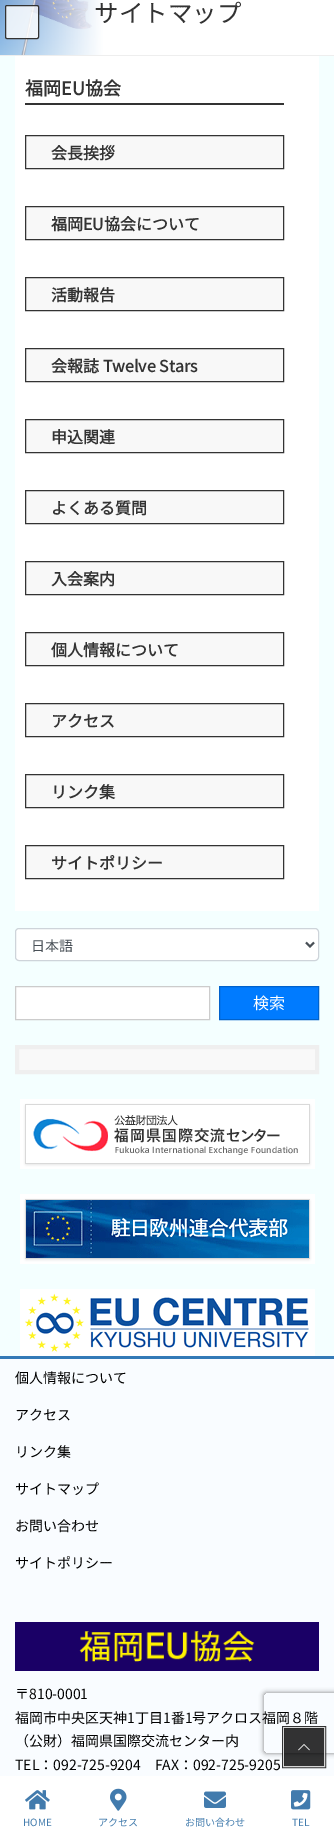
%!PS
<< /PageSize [334 1838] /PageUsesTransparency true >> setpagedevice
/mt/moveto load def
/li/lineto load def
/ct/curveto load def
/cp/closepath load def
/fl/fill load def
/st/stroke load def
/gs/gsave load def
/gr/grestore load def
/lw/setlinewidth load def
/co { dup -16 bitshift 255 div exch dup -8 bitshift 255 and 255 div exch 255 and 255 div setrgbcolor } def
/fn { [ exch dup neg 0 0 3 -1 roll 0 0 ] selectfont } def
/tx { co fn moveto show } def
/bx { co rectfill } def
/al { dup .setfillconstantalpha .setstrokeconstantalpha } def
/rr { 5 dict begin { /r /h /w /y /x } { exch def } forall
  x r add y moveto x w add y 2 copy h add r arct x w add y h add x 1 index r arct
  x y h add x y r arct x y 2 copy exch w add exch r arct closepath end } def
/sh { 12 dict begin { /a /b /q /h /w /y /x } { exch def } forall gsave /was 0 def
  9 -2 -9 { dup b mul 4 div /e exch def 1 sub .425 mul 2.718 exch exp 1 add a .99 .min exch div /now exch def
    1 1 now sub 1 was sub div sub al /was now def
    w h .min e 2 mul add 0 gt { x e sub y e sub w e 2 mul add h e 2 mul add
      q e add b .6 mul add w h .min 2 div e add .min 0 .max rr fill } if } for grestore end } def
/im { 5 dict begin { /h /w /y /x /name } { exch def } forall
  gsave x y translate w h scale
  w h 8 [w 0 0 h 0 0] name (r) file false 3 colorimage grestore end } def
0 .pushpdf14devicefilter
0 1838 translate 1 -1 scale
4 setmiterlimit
0 0 334 1838 16#F4FFFF bx
(media/1.raw) 0 0 334 55 im
0.8 al
16#FFFFFF co
5.5 5.5 33 33 1.5 rr fl
1 al
16#333333 co
5.5 5.5 33 33 1.5 rr st
0 55 334 1 16#EEEEEE bx
15 56 304 855 16#FFFFFF bx
25 103 259 2 16#333333 bx
16#F8F8F8 co
25.5 135.5 mt 283.5 135.5 li 283.5 168.5 li 25.5 168.5 li cp gs fl gr
16#333333 co
st
16#F8F8F8 co
25.5 206.5 mt 283.5 206.5 li 283.5 239.5 li 25.5 239.5 li cp gs fl gr
16#333333 co
st
16#F8F8F8 co
25.5 277.5 mt 283.5 277.5 li 283.5 310.5 li 25.5 310.5 li cp gs fl gr
16#333333 co
st
16#F8F8F8 co
25.5 348.5 mt 283.5 348.5 li 283.5 381.5 li 25.5 381.5 li cp gs fl gr
16#333333 co
st
16#F8F8F8 co
25.5 419.5 mt 283.5 419.5 li 283.5 452.5 li 25.5 452.5 li cp gs fl gr
16#333333 co
st
16#F8F8F8 co
25.5 490.5 mt 283.5 490.5 li 283.5 523.5 li 25.5 523.5 li cp gs fl gr
16#333333 co
st
16#F8F8F8 co
25.5 561.5 mt 283.5 561.5 li 283.5 594.5 li 25.5 594.5 li cp gs fl gr
16#333333 co
st
16#F8F8F8 co
25.5 632.5 mt 283.5 632.5 li 283.5 665.5 li 25.5 665.5 li cp gs fl gr
16#333333 co
st
16#F8F8F8 co
25.5 703.5 mt 283.5 703.5 li 283.5 736.5 li 25.5 736.5 li cp gs fl gr
16#333333 co
st
16#F8F8F8 co
25.5 774.5 mt 283.5 774.5 li 283.5 807.5 li 25.5 807.5 li cp gs fl gr
16#333333 co
st
16#F8F8F8 co
25.5 845.5 mt 283.5 845.5 li 283.5 878.5 li 25.5 878.5 li cp gs fl gr
16#333333 co
st
16#FFFFFF co
16 929 302 31 2.5 rr fl
16#CED4DA co
15.5 928.5 303 32 3.5 rr st
16#495057 co
2 lw
306 942.5 mt 310 946.5 li 314 942.5 li st
16#FFFFFF co
15.5 986.5 mt 209.5 986.5 li 209.5 1019.5 li 15.5 1019.5 li cp gs fl gr
16#CCCCCC co
1 lw
st
16#007BFF co
219.5 986.5 mt 318.5 986.5 li 318.5 1019.5 li 219.5 1019.5 li cp gs fl gr
16#0062CC co
st
16#F9F9F9 co
17 1047 mt 317 1047 li 317 1072 li 17 1072 li cp gs fl gr
16#EFEFEF co
4 lw
st
(media/2.raw) 20 1099 295 70 im
(media/3.raw) 20 1194 295 70 im
(media/4.raw) 20 1289 295 67 im
0 1359 334 417 16#F9FCFF bx
0 1356 334 3 16#337AB7 bx
(media/5.raw) 15 1622 304 49 im
gs
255 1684 mt 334 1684 li 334 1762 li 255 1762 li cp 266 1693 mt 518 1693 li 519 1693 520 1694 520 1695 ct 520 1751 li 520 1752 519 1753 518 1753 ct 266 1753 li 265 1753 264 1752 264 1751 ct 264 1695 li 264 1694 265 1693 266 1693 ct cp eoclip newpath
16#808080 co
264 1693 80 60 2 2.5 1 sh
gr
0.8 al
16#000000 co
2 lw
283 1727 42 40 rectstroke
16#FFFFFF co
1 lw
283.5 1727.5 41 39 rectstroke
284 1728 40 38 16#000000 bx
1 al
(media/6.raw) 298 1744 12 7 im
0 1776 334 62 16#FFFFFF bx
(media/7.raw) 25 1790 25 20 im
(media/8.raw) 110 1788 17 23 im
(media/9.raw) 204 1791 22 17 im
(media/10.raw) 291 1790 20 20 im
(サイトマップ) 94 22 /NotoSansJP-Thin 24.5 16#333333 tx
(福岡EU協会) 25 95 /NotoSansJP-Bold 18 16#333333 tx
(会長挨拶) 51 159 /NotoSansJP-Bold 16 16#333333 tx
(福岡EU協会について) 51 230 /NotoSansJP-Bold 16 16#333333 tx
(活動報告) 51 301 /NotoSansJP-Bold 16 16#333333 tx
(会報誌 Twelve Stars) 51 372 /NotoSansJP-Bold 16 16#333333 tx
(申込関連) 51 443 /NotoSansJP-Bold 16 16#333333 tx
(よくある質問) 51 514 /NotoSansJP-Bold 16 16#333333 tx
(入会案内) 51 585 /NotoSansJP-Bold 16 16#333333 tx
(個人情報について) 51 656 /NotoSansJP-Bold 16 16#333333 tx
(アクセス) 51 727 /NotoSansJP-Bold 16 16#333333 tx
(リンク集) 51 798 /NotoSansJP-Bold 16 16#333333 tx
(サイトポリシー) 51 869 /NotoSansJP-Bold 16 16#333333 tx
(日本語) 31 951 /NotoSansJP-Thin 14 16#495057 tx
(検索) 253 1009 /NotoSansJP-Thin 16 16#FFFFFF tx
(個人情報について) 15 1383 /NotoSansJP-Thin 14 16#000000 tx
(アクセス) 15 1420 /NotoSansJP-Thin 14 16#000000 tx
(リンク集) 15 1457 /NotoSansJP-Thin 14 16#000000 tx
(サイトマップ) 15 1494 /NotoSansJP-Thin 14 16#000000 tx
(お問い合わせ) 15 1531 /NotoSansJP-Thin 14 16#000000 tx
(サイトポリシー) 15 1568 /NotoSansJP-Thin 14 16#000000 tx
(〒810-0001) 15 1699 /NotoSansJP-Thin 14 16#000000 tx
(福岡市中央区天神1丁目1番1号アクロス福岡８階) 15 1723 /NotoSansJP-Thin 14 16#000000 tx
(（公財）福岡県国際交流センター内) 15 1746 /NotoSansJP-Thin 14 16#000000 tx
(TEL：092-725-9204　FAX：092-725-9205) 15 1770 /NotoSansJP-Thin 14 16#000000 tx
(HOME) 23 1826 /NotoSansJP-Thin 10 16#437CAD tx
(アクセス) 98 1826 /NotoSansJP-Thin 10 16#437CAD tx
(お問い合わせ) 185 1826 /NotoSansJP-Thin 10 16#437CAD tx
(TEL) 292 1826 /NotoSansJP-Thin 10 16#437CAD tx
.poppdf14devicefilter showpage
